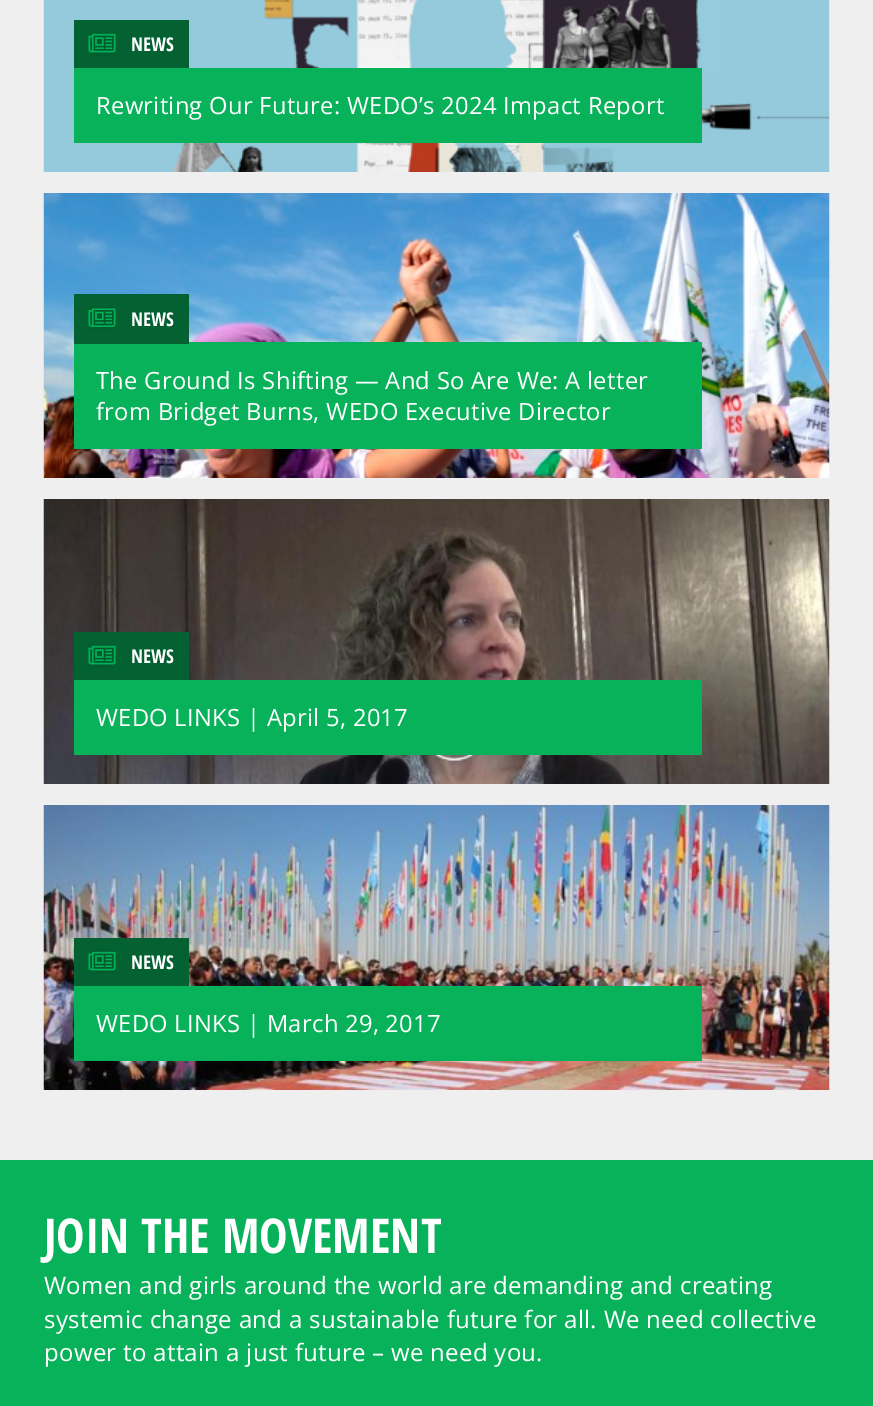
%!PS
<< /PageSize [873 1406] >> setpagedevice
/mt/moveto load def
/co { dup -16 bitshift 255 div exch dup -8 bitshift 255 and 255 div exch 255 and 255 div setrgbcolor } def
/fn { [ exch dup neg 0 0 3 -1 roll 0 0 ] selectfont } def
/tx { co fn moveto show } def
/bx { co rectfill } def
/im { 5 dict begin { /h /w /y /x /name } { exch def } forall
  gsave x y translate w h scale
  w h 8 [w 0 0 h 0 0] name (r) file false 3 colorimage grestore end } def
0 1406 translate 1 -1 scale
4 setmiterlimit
0 0 873 1406 16#EFEFEF bx
(media/1.raw) 43 0 787 172 im
74 20 115 48 16#046232 bx
(media/2.raw) 88 31 28 25 im
74 68 628 75 16#08B25B bx
(media/3.raw) 43 193 787 285 im
74 342 628 107 16#08B25B bx
74 294 115 50 16#046232 bx
(media/4.raw) 88 306 28 24 im
(media/5.raw) 43 499 787 285 im
74 632 115 48 16#046232 bx
(media/2.raw) 88 643 28 25 im
74 680 628 75 16#08B25B bx
(media/6.raw) 43 805 787 285 im
74 938 115 48 16#046232 bx
(media/2.raw) 88 949 28 25 im
74 986 628 75 16#08B25B bx
0 1160 873 246 16#08B25B bx
(NEWS) 131 51 /OpenSansCondensed-Bold 19 16#FFFFFF tx
/OpenSans-Regular 23.75 fn
96 114 mt .3 0 (Rewriting Our Future: WEDO’s 2024 Impact Report) ashow
(NEWS) 131 326 /OpenSansCondensed-Bold 19 16#FFFFFF tx
/OpenSans-Regular 23.75 fn
96 389 mt .3 0 (The Ground Is Shifting — And So Are We: A letter) ashow
96 420 mt .3 0 (from Bridget Burns, WEDO Executive Director) ashow
(NEWS) 131 663 /OpenSansCondensed-Bold 19 16#FFFFFF tx
/OpenSans-Regular 23.75 fn
96 726 mt .3 0 (WEDO LINKS | April 5, 2017) ashow
(NEWS) 131 969 /OpenSansCondensed-Bold 19 16#FFFFFF tx
/OpenSans-Regular 23.75 fn
96 1032 mt .3 0 (WEDO LINKS | March 29, 2017) ashow
(JOIN THE MOVEMENT) 44 1253 /OpenSansCondensed-Bold 48 16#FFFFFF tx
/OpenSans-Regular 24 fn
44 1294 mt .3 0 (Women and girls around the world are demanding and creating) ashow
44 1328 mt .3 0 (systemic change and a sustainable future for all. We need collective) ashow
44 1361 mt .3 0 (power to attain a just future – we need you.) ashow
showpage
